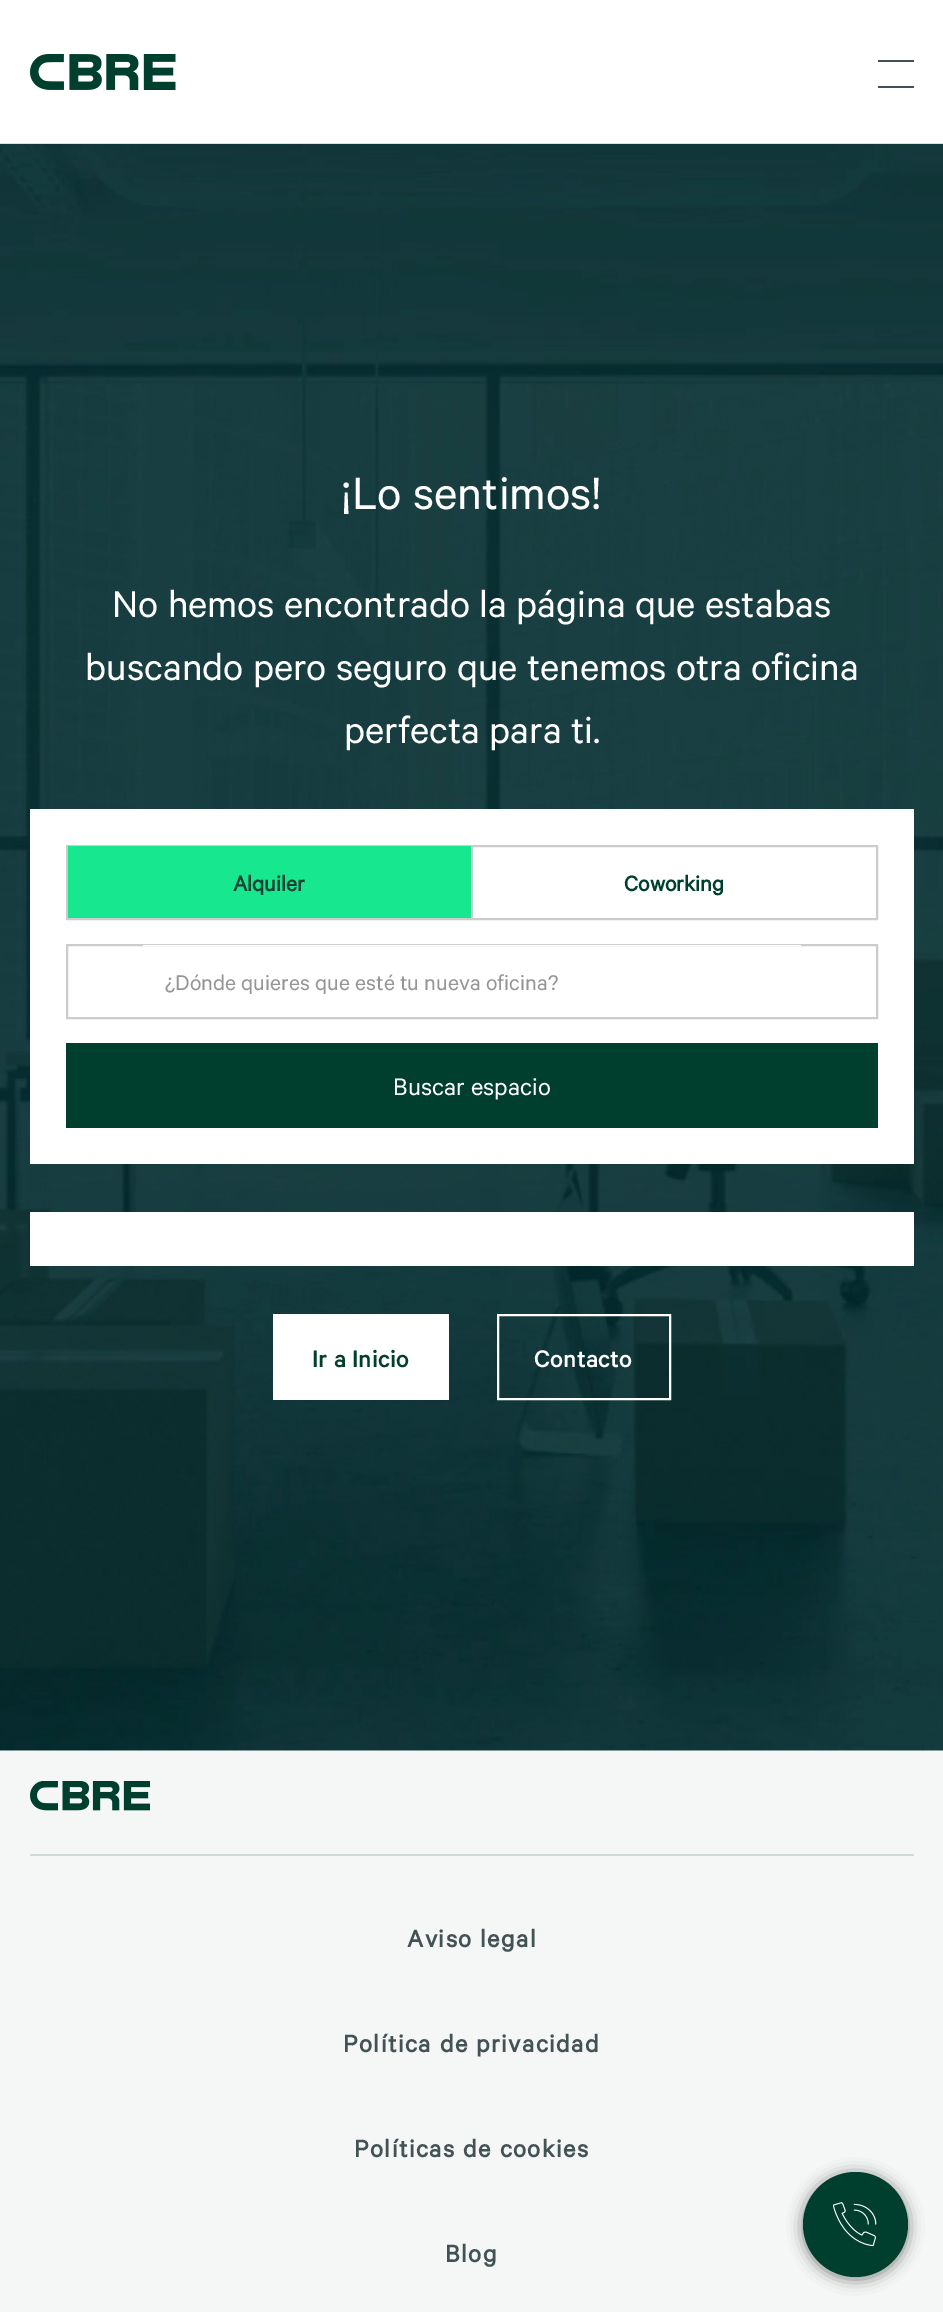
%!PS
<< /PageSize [943 2312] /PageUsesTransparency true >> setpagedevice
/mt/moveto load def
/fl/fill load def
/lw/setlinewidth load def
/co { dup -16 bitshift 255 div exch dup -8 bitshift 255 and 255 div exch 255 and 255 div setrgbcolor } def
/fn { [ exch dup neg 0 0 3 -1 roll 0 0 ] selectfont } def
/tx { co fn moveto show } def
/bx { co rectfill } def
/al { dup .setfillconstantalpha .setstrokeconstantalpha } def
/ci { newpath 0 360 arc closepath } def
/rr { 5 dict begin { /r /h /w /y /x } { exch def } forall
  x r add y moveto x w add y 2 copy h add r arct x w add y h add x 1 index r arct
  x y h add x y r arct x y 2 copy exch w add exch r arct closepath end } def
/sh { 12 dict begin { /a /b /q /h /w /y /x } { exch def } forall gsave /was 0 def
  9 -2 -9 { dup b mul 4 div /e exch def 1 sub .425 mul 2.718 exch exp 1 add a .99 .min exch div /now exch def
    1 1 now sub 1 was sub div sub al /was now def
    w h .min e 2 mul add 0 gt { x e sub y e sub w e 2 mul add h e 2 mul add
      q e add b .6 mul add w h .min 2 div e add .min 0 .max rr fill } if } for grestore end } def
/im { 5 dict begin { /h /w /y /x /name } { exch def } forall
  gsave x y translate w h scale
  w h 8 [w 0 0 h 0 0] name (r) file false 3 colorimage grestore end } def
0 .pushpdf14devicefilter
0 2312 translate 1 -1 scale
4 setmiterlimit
0 0 943 2312 16#FFFFFF bx
(media/1.raw) 30 54 146 36 im
878 60 36 2 16#435254 bx
878 86 36 2 16#435254 bx
(media/2.raw) 0 144 943 1607 im
0.15 al
0 143 943 2 16#003F2D bx
1 al
30 809 884 355 16#FFFFFF bx
16#CBCDCB co
2 lw
67 846 810 73 rectstroke
68 846 403 72 16#17E88F bx
471 846 2 72 16#CBCDCB bx
67 945 810 73 rectstroke
143 945 658 1 16#FFFFFF bx
66 1043 812 85 16#003F2D bx
30 1212 884 54 16#FFFFFF bx
273 1314 176 86 16#FFFFFF bx
498 1315 172 84 rectstroke
0 1751 943 561 16#F5F7F7 bx
(media/3.raw) 30 1781 120 30 im
30 1854 884 2 16#D0DBD9 bx
16#000000 co
803 2174 105 105 52.5 7.5 .5 sh
16#003F2D co
855.5 2224.5 52.5 ci fl
(media/4.raw) 833 2202 44 45 im
(¡Lo sentimos!) 341 509 /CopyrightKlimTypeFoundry-Regular 51 16#FFFFFF tx
(No hemos encontrado la página que estabas) 112 617 /CopyrightKlimTypeFoundry-Regular 42 16#FFFFFF tx
(buscando pero seguro que tenemos otra oficina) 85 680 /CopyrightKlimTypeFoundry-Regular 42 16#FFFFFF tx
(perfecta para ti.) 344 743 /CopyrightKlimTypeFoundry-Regular 42 16#FFFFFF tx
(Alquiler) 233 891 /CopyrightKlimTypeFoundry-Bold 24 16#194334 tx
(Coworking) 624 891 /CopyrightKlimTypeFoundry-Bold 24 16#003F2D tx
(¿Dónde quieres que esté tu nueva oficina?) 165 990 /CopyrightKlimTypeFoundry-Regular 24 16#959595 tx
(Buscar espacio) 393 1095 /CopyrightKlimTypeFoundry-Regular 27 16#FFFFFF tx
(Ir a Inicio) 312 1367 /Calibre-Medium 27 16#003F2D tx
(Contacto) 534 1367 /Calibre-Medium 27 16#FFFFFF tx
/CopyrightKlimTypeFoundry-Bold 27 fn
16#435254 co
407 1947 mt 1.5 0 (Aviso legal) ashow
343 2052 mt 1.5 0 (Política de privacidad) ashow
354 2157 mt 1.5 0 (Políticas de cookies) ashow
445 2262 mt 1.5 0 (Blog) ashow
.poppdf14devicefilter showpage
